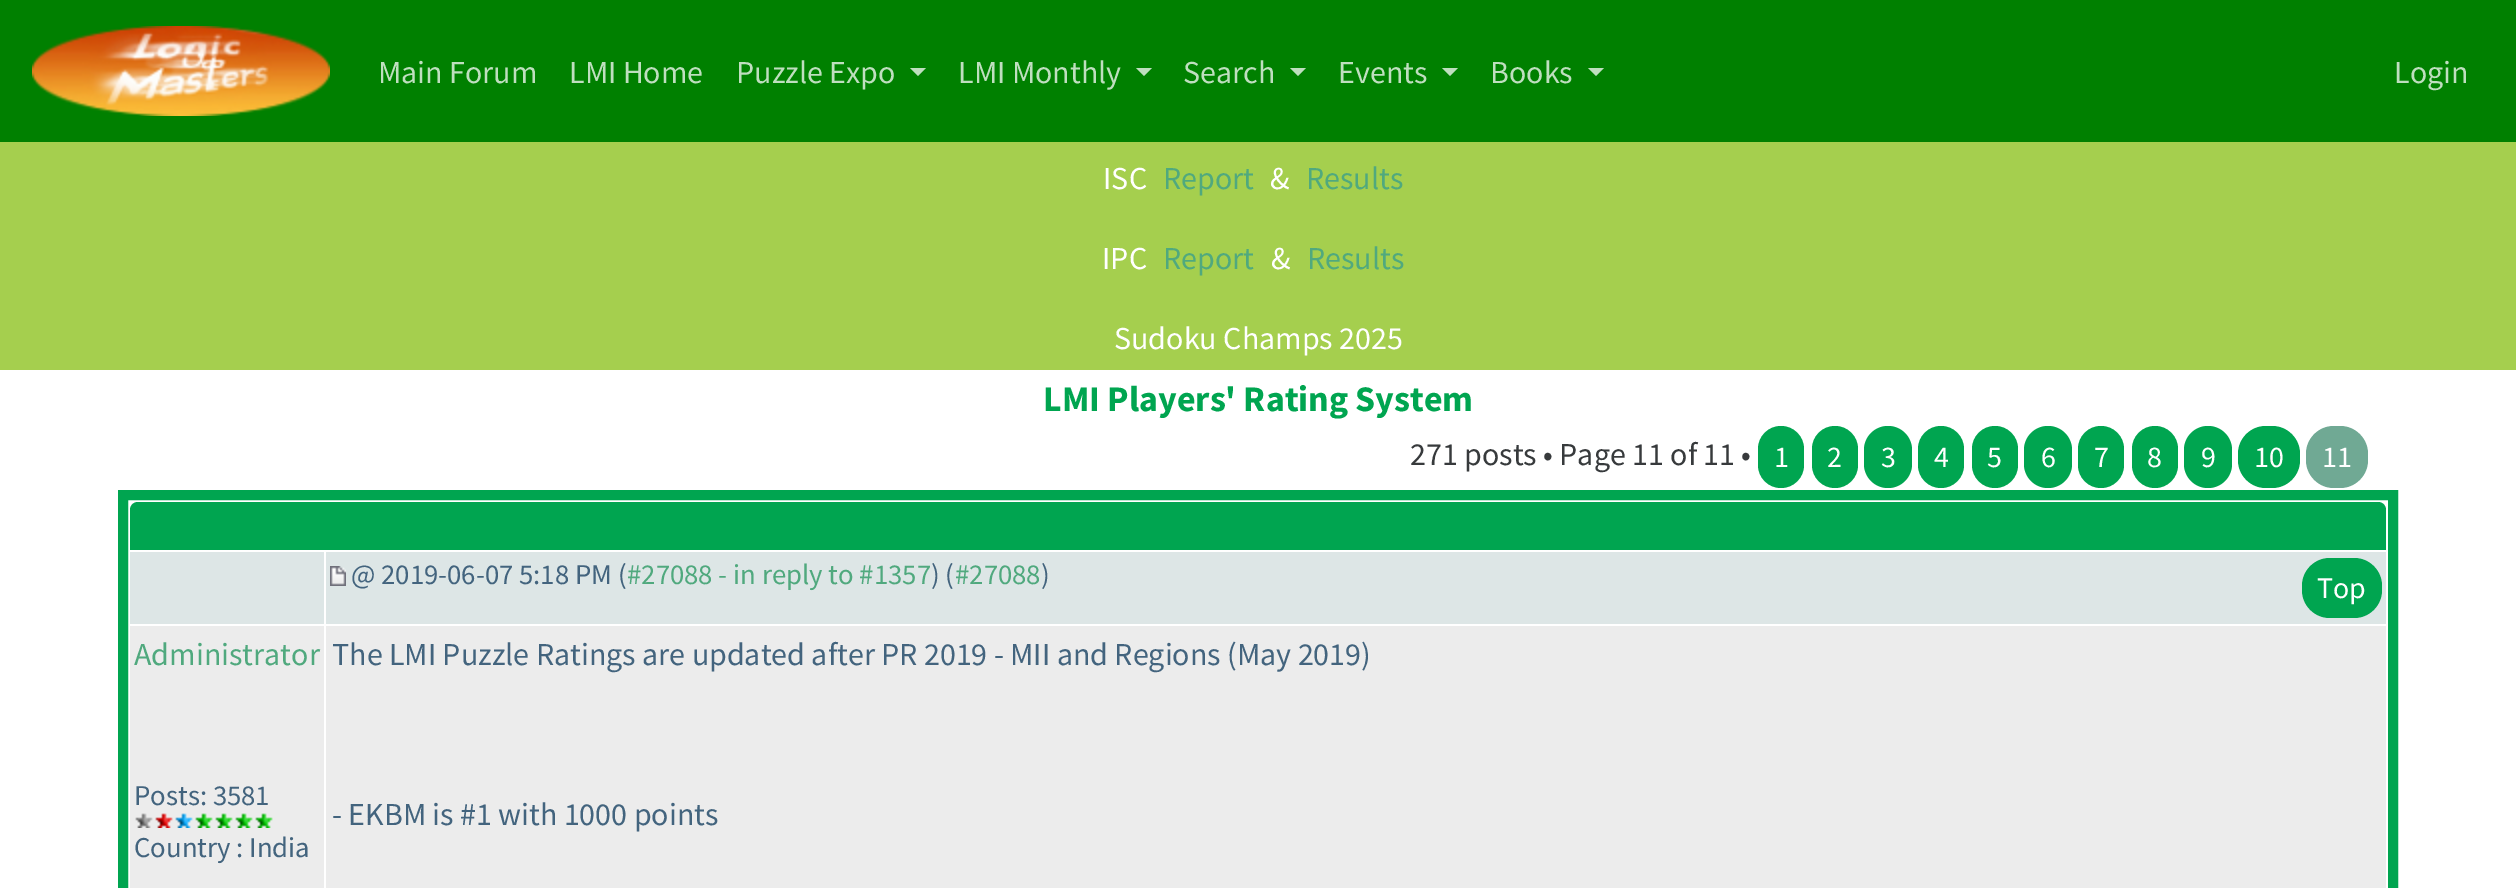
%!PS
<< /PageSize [2516 888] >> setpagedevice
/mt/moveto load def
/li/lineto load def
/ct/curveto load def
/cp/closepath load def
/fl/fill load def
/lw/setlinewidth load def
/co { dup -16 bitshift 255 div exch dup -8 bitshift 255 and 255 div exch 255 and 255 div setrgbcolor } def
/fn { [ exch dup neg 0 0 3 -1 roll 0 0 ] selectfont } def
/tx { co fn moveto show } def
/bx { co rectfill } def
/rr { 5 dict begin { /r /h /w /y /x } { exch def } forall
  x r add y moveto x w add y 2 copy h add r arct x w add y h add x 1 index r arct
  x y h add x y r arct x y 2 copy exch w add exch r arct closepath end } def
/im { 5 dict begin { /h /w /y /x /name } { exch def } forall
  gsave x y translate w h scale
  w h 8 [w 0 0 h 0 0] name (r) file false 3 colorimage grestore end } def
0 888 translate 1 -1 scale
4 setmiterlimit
0 0 2516 888 16#FFFFFF bx
0 0 2516 142 16#008000 bx
(media/1.raw) 32 26 298 90 im
16#BFDFBF co
910 68 mt 926 68 li 918 76 li cp fl
1136 68 mt 1152 68 li 1144 76 li cp fl
1290 68 mt 1306 68 li 1298 76 li cp fl
1442 68 mt 1458 68 li 1450 76 li cp fl
1588 68 mt 1604 68 li 1596 76 li cp fl
0 142 2516 228 16#A5CF4E bx
16#00A550 co
1758 426 46 62 23 rr fl
1812 426 46 62 23 rr fl
1864 426 48 62 24 rr fl
1918 426 46 62 23 rr fl
1972 426 46 62 23 rr fl
2024 426 48 62 24 rr fl
2078 426 46 62 23 rr fl
2132 426 46 62 23 rr fl
2184 426 48 62 24 rr fl
2238 426 62 62 28 rr fl
16#70A994 co
2306 426 62 62 28 rr fl
16#00A550 co
10 lw
123 495 2270 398 rectstroke
138 502 mt 2378 502 li 2382.5 502 2386 505.5 2386 510 ct 2386 550 li 130 550 li 130 510 li 130 505.5 133.5 502 138 502 ct cp fl
130 552 194 72 16#DDE6E6 bx
326 552 2060 72 16#DDE6E6 bx
(media/2.raw) 330 566 16 20 im
16#00A550 co
2302 558 80 60 28 rr fl
130 626 194 262 16#ECECEC bx
(media/3.raw) 135 813 18 15 im
(media/4.raw) 155 813 18 15 im
(media/5.raw) 175 813 18 15 im
(media/6.raw) 195 813 18 15 im
(media/6.raw) 215 813 18 15 im
(media/6.raw) 235 813 18 15 im
(media/6.raw) 255 813 18 15 im
326 626 2060 262 16#ECECEC bx
(Main Forum) 378 83 /SourceSansPro-Regular 32 16#BFDFBF tx
(LMI Home) 569 83 /SourceSansPro-Regular 32 16#BFDFBF tx
(Puzzle Expo) 736 83 /SourceSansPro-Regular 32 16#BFDFBF tx
(LMI Monthly) 958 83 /SourceSansPro-Regular 32 16#BFDFBF tx
(Search) 1183 83 /SourceSansPro-Regular 32 16#BFDFBF tx
(Events) 1338 83 /SourceSansPro-Regular 32 16#BFDFBF tx
(Books) 1490 83 /SourceSansPro-Regular 32 16#BFDFBF tx
(Login) 2394 83 /SourceSansPro-Regular 32 16#BFDFBF tx
(ISC) 1103 189 /SourceSansPro-Regular 32 16#FFFFFF tx
(Report) 1163 189 /SourceSansPro-Regular 32 16#50A97E tx
(&) 1270 189 /SourceSansPro-Regular 32 16#FFFFFF tx
(Results) 1306 189 /SourceSansPro-Regular 32 16#50A97E tx
(IPC) 1102 269 /SourceSansPro-Regular 32 16#FFFFFF tx
(Report) 1163 269 /SourceSansPro-Regular 32 16#50A97E tx
(&) 1271 269 /SourceSansPro-Regular 32 16#FFFFFF tx
(Results) 1307 269 /SourceSansPro-Regular 32 16#50A97E tx
(Sudoku Champs 2025) 1114 349 /SourceSansPro-Regular 32 16#FFFFFF tx
(LMI Players' Rating System) 1043 411 /SourceSansPro-Bold 36 16#00A550 tx
(271 posts • Page 11 of 11 •) 1410 465 /SourceSansPro-Regular 32 16#373A3C tx
(1) 1774 467 /SourceSansPro-Regular 30 16#FFFFFF tx
(2) 1827 467 /SourceSansPro-Regular 30 16#FFFFFF tx
(3) 1881 467 /SourceSansPro-Regular 30 16#FFFFFF tx
(4) 1934 467 /SourceSansPro-Regular 30 16#FFFFFF tx
(5) 1987 467 /SourceSansPro-Regular 30 16#FFFFFF tx
(6) 2041 467 /SourceSansPro-Regular 30 16#FFFFFF tx
(7) 2094 467 /SourceSansPro-Regular 30 16#FFFFFF tx
(8) 2147 467 /SourceSansPro-Regular 30 16#FFFFFF tx
(9) 2201 467 /SourceSansPro-Regular 30 16#FFFFFF tx
(10) 2254 467 /SourceSansPro-Regular 30 16#FFFFFF tx
(11) 2322 467 /SourceSansPro-Regular 30 16#FFFFFF tx
(@ 2019-06-07 5:18 PM \() 351 584 /SourceSansPro-Regular 28.75 16#43647E tx
(#27088 - in reply to #1357) 627 584 /SourceSansPro-Regular 28.75 16#50A97E tx
(\) \() 931 584 /SourceSansPro-Regular 28.75 16#43647E tx
(#27088) 955 584 /SourceSansPro-Regular 28.75 16#50A97E tx
(\)) 1041 584 /SourceSansPro-Regular 28.75 16#43647E tx
(Top) 2317 598 /SourceSansPro-Regular 30 16#FFFFFF tx
(Administrator) 134 665 /SourceSansPro-Regular 32 16#50A97E tx
(Posts: 3581) 134 805 /SourceSansPro-Regular 28.75 16#43647E tx
(Country : India) 134 857 /SourceSansPro-Regular 28.75 16#43647E tx
(The LMI Puzzle Ratings are updated after PR 2019 - MII and Regions \(May 2019\)) 332 665 /SourceSansPro-Regular 32 16#43647E tx
(- EKBM is #1 with 1000 points) 332 825 /SourceSansPro-Regular 32 16#43647E tx
showpage
